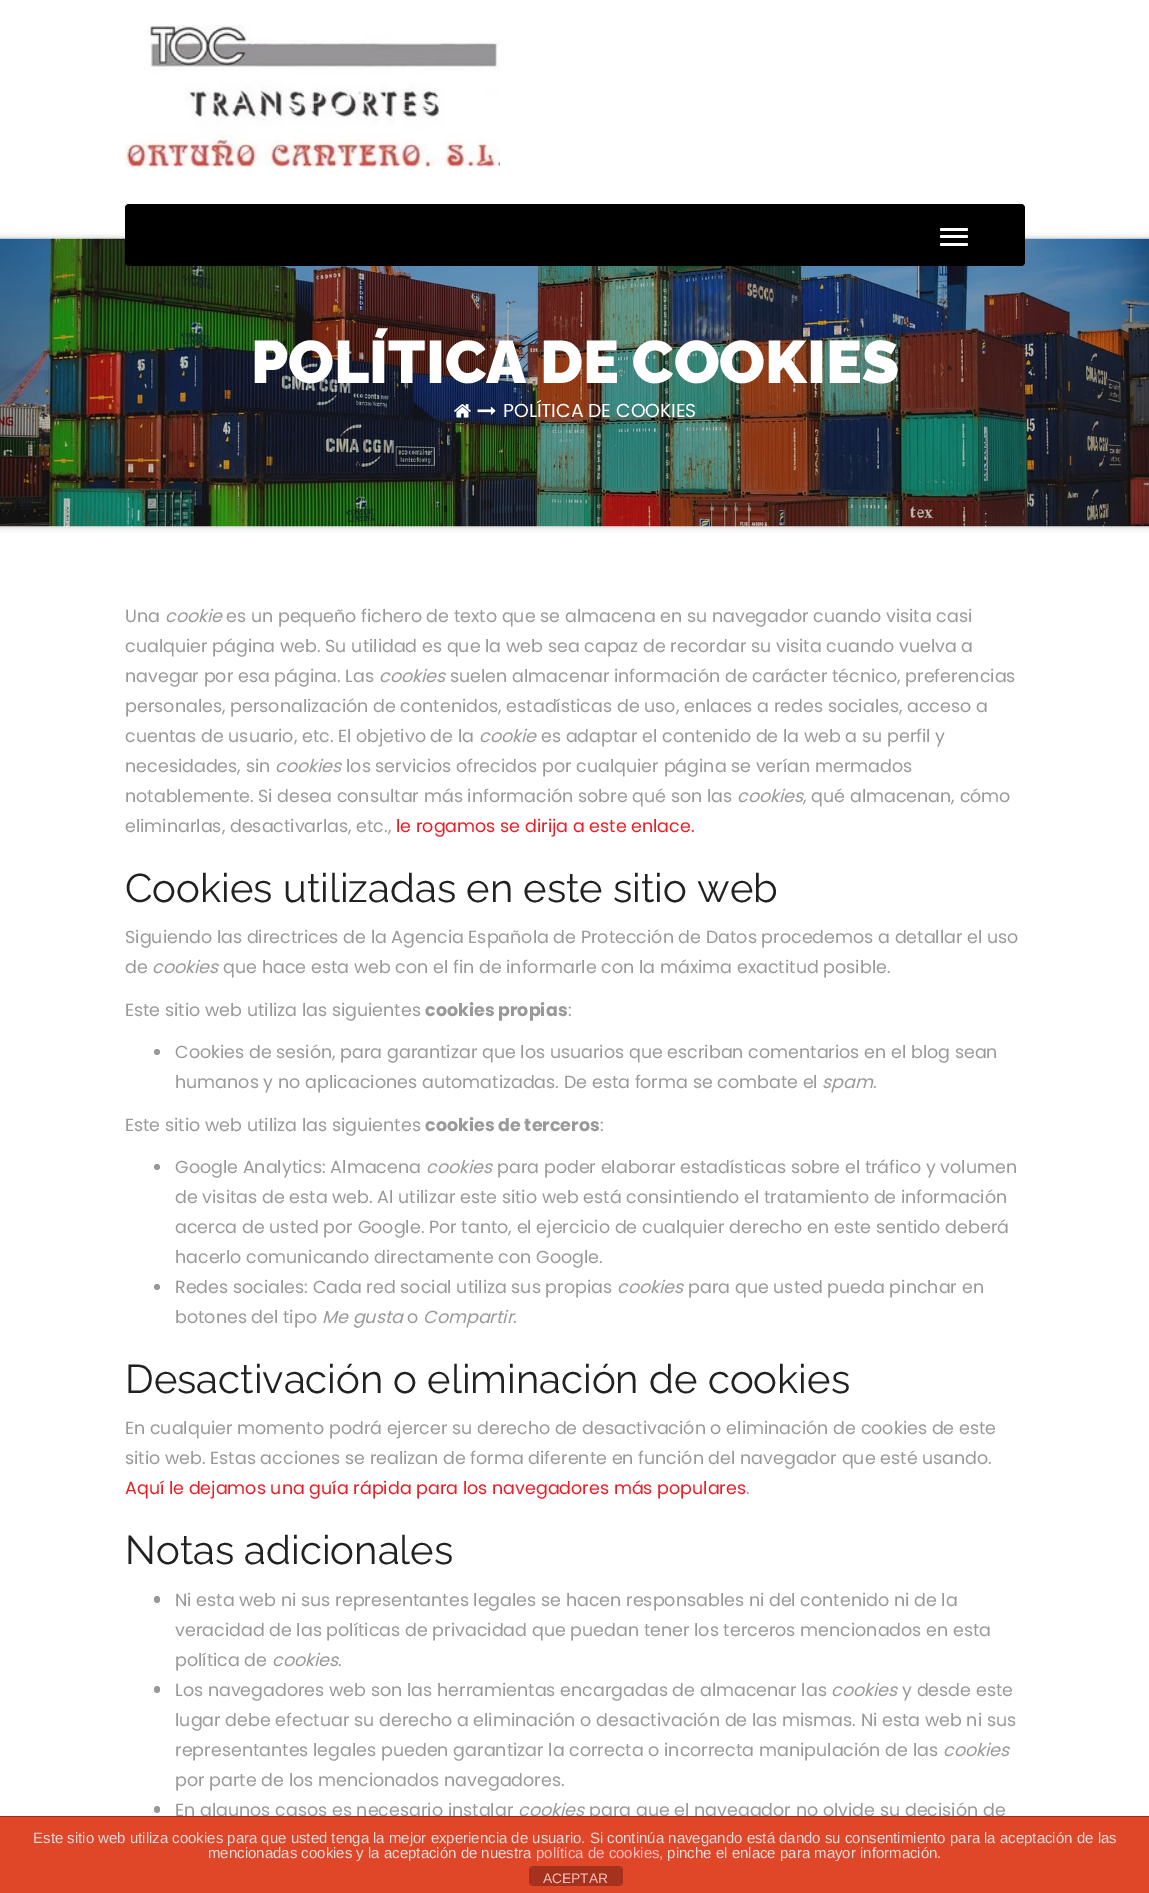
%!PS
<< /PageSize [1149 1893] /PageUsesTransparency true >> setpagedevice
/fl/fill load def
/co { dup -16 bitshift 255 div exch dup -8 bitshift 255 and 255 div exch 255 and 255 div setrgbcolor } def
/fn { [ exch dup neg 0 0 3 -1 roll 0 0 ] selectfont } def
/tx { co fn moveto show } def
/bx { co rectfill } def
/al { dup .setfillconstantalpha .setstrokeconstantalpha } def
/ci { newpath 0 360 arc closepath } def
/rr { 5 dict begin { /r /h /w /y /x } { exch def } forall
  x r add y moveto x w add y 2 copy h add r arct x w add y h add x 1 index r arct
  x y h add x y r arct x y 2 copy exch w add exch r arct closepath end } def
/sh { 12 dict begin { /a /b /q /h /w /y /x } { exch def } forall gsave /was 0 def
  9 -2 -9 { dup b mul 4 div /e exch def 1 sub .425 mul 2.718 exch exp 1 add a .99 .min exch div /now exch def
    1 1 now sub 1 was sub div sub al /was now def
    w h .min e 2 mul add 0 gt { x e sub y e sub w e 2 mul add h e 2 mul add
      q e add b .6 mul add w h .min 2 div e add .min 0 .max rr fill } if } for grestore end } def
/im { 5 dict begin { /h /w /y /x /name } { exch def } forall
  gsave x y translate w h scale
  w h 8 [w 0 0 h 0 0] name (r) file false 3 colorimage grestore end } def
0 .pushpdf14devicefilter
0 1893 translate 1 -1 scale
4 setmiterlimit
0 0 1149 1893 16#FFFFFF bx
(media/1.raw) 125 25 375 142 im
16#AAAAAA co
0 239 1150 287 0 3 1 sh
(media/2.raw) 0 238 1149 289 im
16#000000 co
125 204 900 62 4 rr fl
16#FFFFFF co
940 228 28 3 1.5 rr fl
940 235 28 3 1.5 rr fl
940 243 28 3 1.5 rr fl
(media/3.raw) 454 404 17 14 im
(media/4.raw) 477 406 19 9 im
16#999999 co
157 1052 3 ci fl
157 1167 3 ci fl
157 1287 3 ci fl
154 1596 6 7 3 rr fl
154 1686 6 7 3 rr fl
154 1806 6 7 3 rr fl
(POLÍTICA DE COOKIES) 251 383 /Raleway-Black 60 16#FFFFFF tx
(POLÍTICA DE COOKIES) 503 417 /Poppins-Regular 18.75 16#FFFFFF tx
(Una) 125 622 /Poppins-Regular 17.5 16#999999 tx
(cookie) 165 622 /Poppins-Italic 17.5 16#999999 tx
(es un pequeño fichero de texto que se almacena en su navegador cuando visita casi) 226 622 /Poppins-Regular 17.5 16#999999 tx
(cualquier página web. Su utilidad es que la web sea capaz de recordar su visita cuando vuelva a) 125 652 /Poppins-Regular 17.5 16#999999 tx
(navegar por esa página. Las) 125 682 /Poppins-Regular 17.5 16#999999 tx
(cookies) 379 682 /Poppins-Italic 17.5 16#999999 tx
(suelen almacenar información de carácter técnico, preferencias) 450 682 /Poppins-Regular 17.5 16#999999 tx
(personales, personalización de contenidos, estadísticas de uso, enlaces a redes sociales, acceso a) 125 712 /Poppins-Regular 17.5 16#999999 tx
(cuentas de usuario, etc. El objetivo de la) 125 742 /Poppins-Regular 17.5 16#999999 tx
(cookie) 479 742 /Poppins-Italic 17.5 16#999999 tx
(es adaptar el contenido de la web a su perfil y) 541 742 /Poppins-Regular 17.5 16#999999 tx
(necesidades, sin) 125 772 /Poppins-Regular 17.5 16#999999 tx
(cookies) 275 772 /Poppins-Italic 17.5 16#999999 tx
(los servicios ofrecidos por cualquier página se verían mermados) 346 772 /Poppins-Regular 17.5 16#999999 tx
(notablemente. Si desea consultar más información sobre qué son las) 125 802 /Poppins-Regular 17.5 16#999999 tx
(cookies) 737 802 /Poppins-Italic 17.5 16#999999 tx
(, qué almacenan, cómo) 803 802 /Poppins-Regular 17.5 16#999999 tx
(eliminarlas, desactivarlas, etc.,) 125 832 /Poppins-Regular 17.5 16#999999 tx
(le rogamos se dirija a este enlace.) 396 832 /Poppins-Regular 17.5 16#ED1C24 tx
(Cookies utilizadas en este sitio web) 125 902 /Raleway-Regular 40 16#212121 tx
(Siguiendo las directrices de la Agencia Española de Protección de Datos procedemos a detallar el uso) 125 943 /Poppins-Regular 17.5 16#999999 tx
(de) 125 973 /Poppins-Regular 17.5 16#999999 tx
(cookies) 152 973 /Poppins-Italic 17.5 16#999999 tx
(que hace esta web con el fin de informarle con la máxima exactitud posible.) 223 973 /Poppins-Regular 17.5 16#999999 tx
(Este sitio web utiliza las siguientes) 125 1016 /Poppins-Regular 17.5 16#999999 tx
(cookies propias) 425 1016 /Poppins-Bold 17.5 16#999999 tx
(:) 568 1016 /Poppins-Regular 17.5 16#999999 tx
(Cookies de sesión, para garantizar que los usuarios que escriban comentarios en el blog sean) 175 1058 /Poppins-Regular 17.5 16#999999 tx
(humanos y no aplicaciones automatizadas. De esta forma se combate el) 175 1088 /Poppins-Regular 17.5 16#999999 tx
(spam) 822 1088 /Poppins-Italic 17.5 16#999999 tx
(.) 873 1088 /Poppins-Regular 17.5 16#999999 tx
(Este sitio web utiliza las siguientes) 125 1131 /Poppins-Regular 17.5 16#999999 tx
(cookies de terceros) 425 1131 /Poppins-Bold 17.5 16#999999 tx
(:) 600 1131 /Poppins-Regular 17.5 16#999999 tx
(Google Analytics: Almacena) 175 1173 /Poppins-Regular 17.5 16#999999 tx
(cookies) 426 1173 /Poppins-Italic 17.5 16#999999 tx
(para poder elaborar estadísticas sobre el tráfico y volumen) 497 1173 /Poppins-Regular 17.5 16#999999 tx
(de visitas de esta web. Al utilizar este sitio web está consintiendo el tratamiento de información) 175 1203 /Poppins-Regular 17.5 16#999999 tx
(acerca de usted por Google. Por tanto, el ejercicio de cualquier derecho en este sentido deberá) 175 1233 /Poppins-Regular 17.5 16#999999 tx
(hacerlo comunicando directamente con Google.) 175 1263 /Poppins-Regular 17.5 16#999999 tx
(Redes sociales: Cada red social utiliza sus propias) 175 1293 /Poppins-Regular 17.5 16#999999 tx
(cookies) 617 1293 /Poppins-Italic 17.5 16#999999 tx
(para que usted pueda pinchar en) 688 1293 /Poppins-Regular 17.5 16#999999 tx
(botones del tipo) 175 1323 /Poppins-Regular 17.5 16#999999 tx
(Me gusta) 322 1323 /Poppins-Italic 17.5 16#999999 tx
(o) 407 1323 /Poppins-Regular 17.5 16#999999 tx
(Compartir) 423 1323 /Poppins-Italic 17.5 16#999999 tx
(.) 513 1323 /Poppins-Regular 17.5 16#999999 tx
(Desactivación o eliminación de cookies) 125 1393 /Raleway-Regular 40 16#212121 tx
(En cualquier momento podrá ejercer su derecho de desactivación o eliminación de cookies de este) 125 1434 /Poppins-Regular 17.5 16#999999 tx
(sitio web. Estas acciones se realizan de forma diferente en función del navegador que esté usando.) 125 1464 /Poppins-Regular 17.5 16#999999 tx
(Aquí le dejamos una guía rápida para los navegadores más populares) 125 1494 /Poppins-Regular 17.5 16#ED1C24 tx
(.) 746 1494 /Poppins-Regular 17.5 16#999999 tx
(Notas adicionales) 125 1564 /Raleway-Regular 40 16#212121 tx
(Ni esta web ni sus representantes legales se hacen responsables ni del contenido ni de la) 175 1606 /Poppins-Regular 17.5 16#999999 tx
(veracidad de las políticas de privacidad que puedan tener los terceros mencionados en esta) 175 1636 /Poppins-Regular 17.5 16#999999 tx
(política de) 175 1666 /Poppins-Regular 17.5 16#999999 tx
(cookies) 272 1666 /Poppins-Italic 17.5 16#999999 tx
(.) 338 1666 /Poppins-Regular 17.5 16#999999 tx
(Los navegadores web son las herramientas encargadas de almacenar las) 175 1696 /Poppins-Regular 17.5 16#999999 tx
(cookies) 831 1696 /Poppins-Italic 17.5 16#999999 tx
(y desde este) 902 1696 /Poppins-Regular 17.5 16#999999 tx
(lugar debe efectuar su derecho a eliminación o desactivación de las mismas. Ni esta web ni sus) 175 1726 /Poppins-Regular 17.5 16#999999 tx
(representantes legales pueden garantizar la correcta o incorrecta manipulación de las) 175 1756 /Poppins-Regular 17.5 16#999999 tx
(cookies) 943 1756 /Poppins-Italic 17.5 16#999999 tx
(por parte de los mencionados navegadores.) 175 1786 /Poppins-Regular 17.5 16#999999 tx
(En algunos casos es necesario instalar) 175 1816 /Poppins-Regular 17.5 16#999999 tx
(cookies) 518 1816 /Poppins-Italic 17.5 16#999999 tx
(para que el navegador no olvide su decisión de) 589 1816 /Poppins-Regular 17.5 16#999999 tx
0 1817 1149 76 16#E04729 bx
0 1816 1149 1 16#99301B bx
(Este sitio web utiliza cookies para que usted tenga la mejor experiencia de usuario. Si continúa navegando está dando su consentimiento para la aceptación de las) 33 1843 /LiberationSans-Regular 15 16#DDDDDD tx
(mencionadas cookies y la aceptación de nuestra) 208 1858 /LiberationSans-Regular 15 16#DDDDDD tx
(política de cookies) 536 1858 /LiberationSans-Regular 15 16#FEBEBE tx
(, pinche el enlace para mayor información.) 659 1858 /LiberationSans-Regular 15 16#DDDDDD tx
16#A5321C co
529 1866 94 20 4 rr fl
(ACEPTAR) 543 1883 /LiberationSans-Regular 13.75 16#FEBEBE tx
.poppdf14devicefilter showpage
